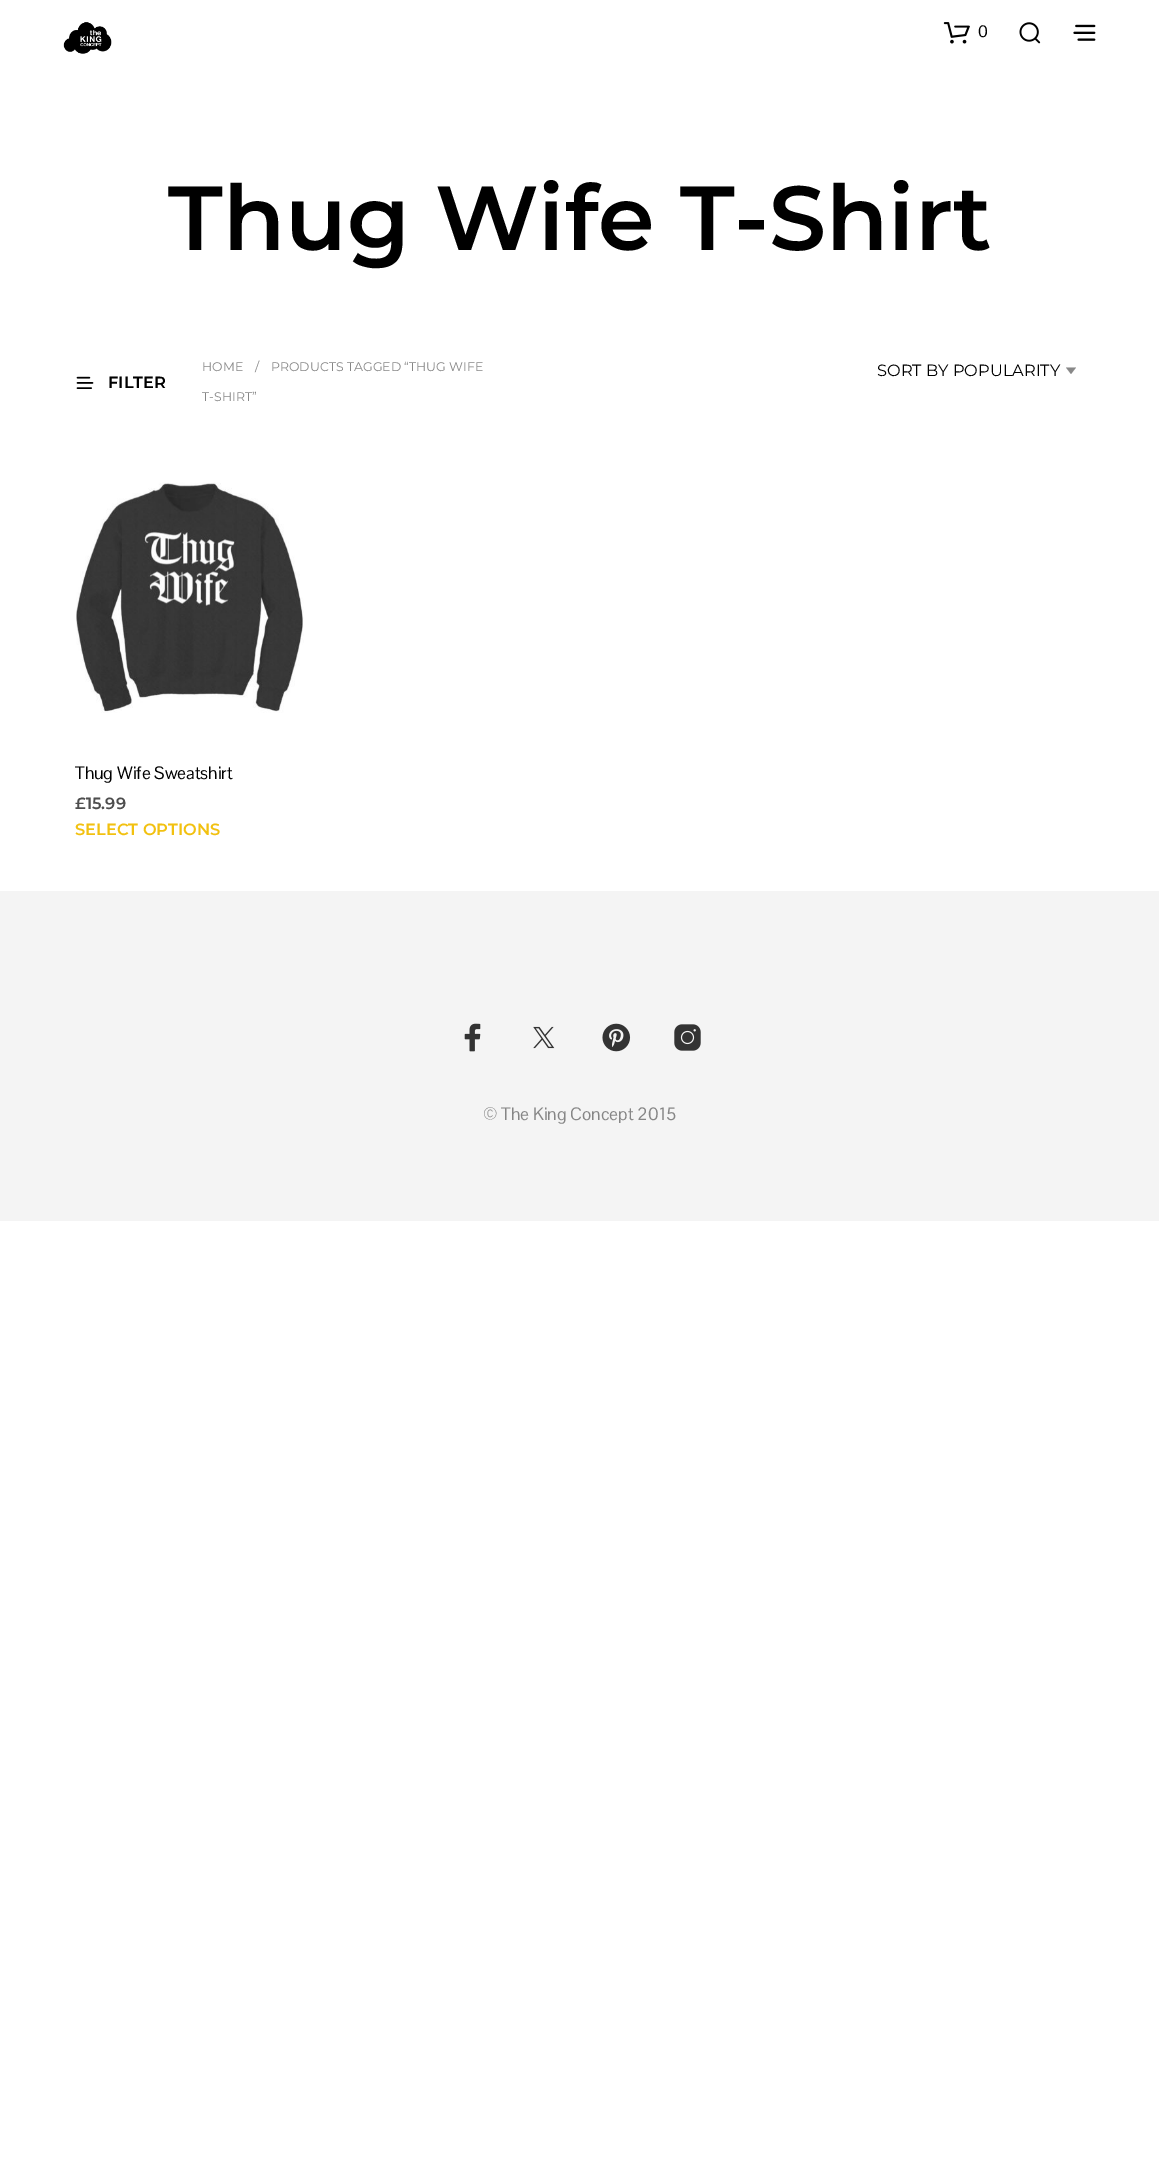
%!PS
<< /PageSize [1159 2183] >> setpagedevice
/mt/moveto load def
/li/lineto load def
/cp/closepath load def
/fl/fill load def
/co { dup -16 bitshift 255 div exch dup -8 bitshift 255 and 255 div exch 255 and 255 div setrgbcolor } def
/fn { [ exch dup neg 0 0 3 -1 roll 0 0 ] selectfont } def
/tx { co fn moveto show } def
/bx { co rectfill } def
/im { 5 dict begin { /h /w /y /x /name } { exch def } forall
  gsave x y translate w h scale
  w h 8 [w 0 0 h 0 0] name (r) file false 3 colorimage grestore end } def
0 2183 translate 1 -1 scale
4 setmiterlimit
0 0 1159 2183 16#FFFFFF bx
(media/1.raw) 63 22 49 32 im
(media/2.raw) 943 22 27 22 im
(media/3.raw) 1019 22 22 22 im
(media/4.raw) 1073 24 23 17 im
(media/5.raw) 76 376 18 13 im
16#888888 co
1066 367.5 mt 1076 367.5 li 1071 374 li cp fl
(media/6.raw) 76 482 228 231 im
0 891 1159 330 16#F4F4F4 bx
(media/7.raw) 464 1023 17 29 im
(media/8.raw) 533 1026 22 23 im
(media/9.raw) 602 1023 29 29 im
(media/10.raw) 674 1024 27 27 im
(0) 978 37 /PontanoSans-Regular 16.25 16#000000 tx
(Thug Wife T-Shirt) 168 250 /Montserrat-SemiBold 90.75 16#000000 tx
(FILTER) 108 388 /Montserrat-SemiBold 16.25 16#000000 tx
(HOME) 202 371 /Montserrat-Regular 12.5 16#868686 tx
(/) 255 371 /Montserrat-Regular 12.5 16#868686 tx
(PRODUCTS TAGGED “THUG WIFE) 271 371 /Montserrat-Regular 12.5 16#868686 tx
(T-SHIRT”) 202 401 /Montserrat-Regular 12.5 16#868686 tx
(SORT BY POPULARITY) 877 376 /Montserrat-Regular 16.25 16#000000 tx
(Thug Wife Sweatshirt) 75 779 /PontanoSans-Regular 17.5 16#000000 tx
(£15.99) 75 809 /Montserrat-SemiBold 16.25 16#4E4E4E tx
(SELECT OPTIONS) 75 835 /Montserrat-SemiBold 16.25 16#F2C110 tx
(© The King Concept 2015) 483 1120 /PontanoSans-Regular 17.5 16#868686 tx
showpage
